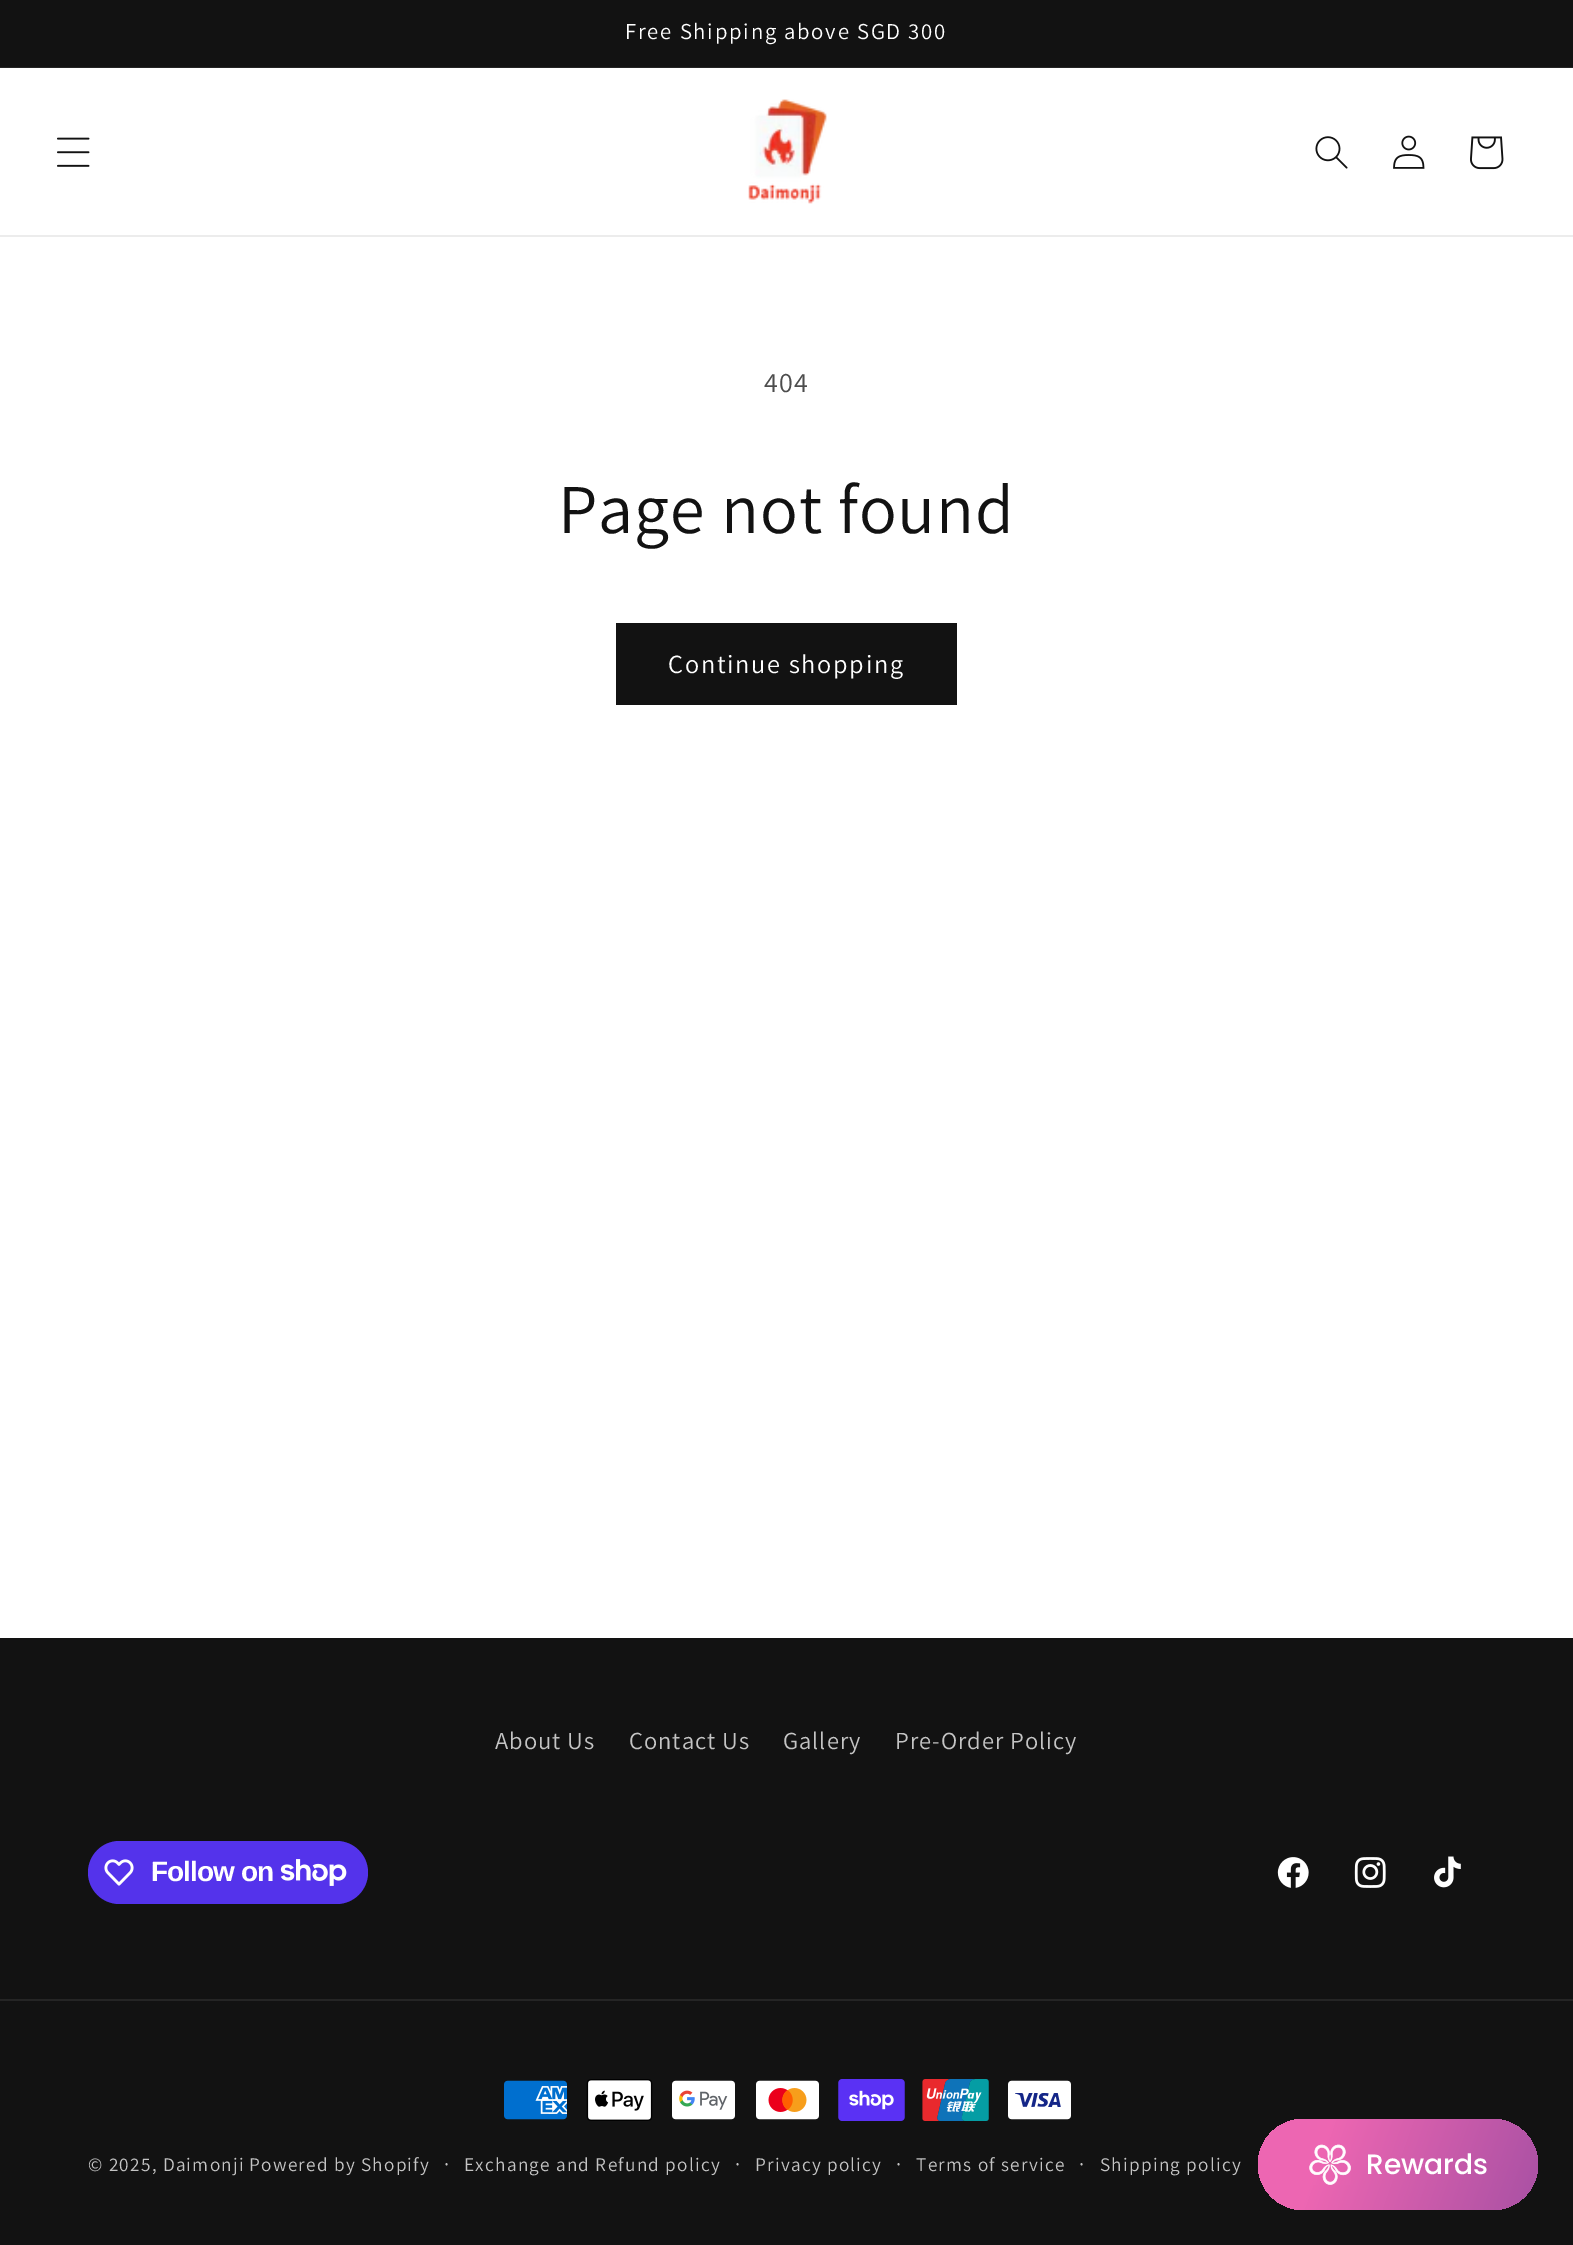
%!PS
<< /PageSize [1573 2245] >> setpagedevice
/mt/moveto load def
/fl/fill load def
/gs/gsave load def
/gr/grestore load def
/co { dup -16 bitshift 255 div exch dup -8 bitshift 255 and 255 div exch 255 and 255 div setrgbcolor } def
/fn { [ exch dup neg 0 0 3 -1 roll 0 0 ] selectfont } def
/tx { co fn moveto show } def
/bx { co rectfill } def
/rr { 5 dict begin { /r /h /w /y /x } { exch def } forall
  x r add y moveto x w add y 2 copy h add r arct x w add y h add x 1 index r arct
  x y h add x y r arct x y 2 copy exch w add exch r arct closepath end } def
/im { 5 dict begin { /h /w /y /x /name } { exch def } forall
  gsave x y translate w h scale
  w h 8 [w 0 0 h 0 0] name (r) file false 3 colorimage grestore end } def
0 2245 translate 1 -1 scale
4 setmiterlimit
0 0 1573 2245 16#FFFFFF bx
0 0 1573 67 16#121212 bx
0 67 1573 1 16#252525 bx
0 235 1573 2 16#ECECEC bx
(media/1.raw) 57 137 33 30 im
(media/2.raw) 748 99 79 105 im
(media/3.raw) 1315 136 33 33 im
(media/4.raw) 1393 135 32 34 im
(media/5.raw) 1470 136 34 34 im
616 623 341 82 16#121212 bx
0 1638 1573 607 16#121212 bx
16#5433EB co
88 1841 280 63 31.5 rr fl
(media/6.raw) 104 1859 30 27 im
(media/7.raw) 280 1859 67 27 im
(media/8.raw) 1277 1857 32 31 im
(media/9.raw) 1354 1857 32 31 im
(media/10.raw) 1434 1856 27 32 im
0 1999 1573 2 16#252525 bx
(media/11.raw) 504 2080 63 40 im
(media/12.raw) 586 2079 67 42 im
(media/13.raw) 672 2080 63 40 im
(media/14.raw) 756 2080 63 40 im
(media/15.raw) 838 2079 67 42 im
(media/16.raw) 922 2079 67 42 im
(media/17.raw) 1008 2080 63 40 im
gs 1258 2119 280 91 45.5 rr clip newpath
<< /ShadingType 2 /ColorSpace /DeviceRGB /Coords [1260 2116 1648 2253] /Extend [true true] /Function << /FunctionType 3 /Domain [0 1] /Functions [<< /FunctionType 2 /Domain [0 1] /C0 [.929 .4 .698] /C1 [.929 .4 .698] /N 1 >> << /FunctionType 2 /Domain [0 1] /C0 [.929 .4 .698] /C1 [.525 .275 .612] /N 1 >>] /Bounds [.17] /Encode [0 1 0 1] >> >> shfill gr
(media/18.raw) 1309 2144 42 41 im
/Assistant-Regular 22.75 fn
16#FFFFFF co
625 39 mt 1.75 0 (Free Shipping above SGD 300) ashow
/Assistant-Regular 28 fn
16#4D4D4D co
764 392 mt 1 0 (404) ashow
/Assistant-Regular 70 fn
16#121212 co
558 533 mt 1 0 (Page not found) ashow
/Assistant-Regular 26.25 fn
16#FFFFFF co
668 673 mt 1.75 0 (Continue shopping) ashow
/Assistant-Regular 24.5 fn
16#C4C4C4 co
495 1749 mt 1 0 (About Us) ashow
629 1749 mt 1 0 (Contact Us) ashow
783 1749 mt 1 0 (Gallery) ashow
895 1749 mt 1 0 (Pre-Order Policy) ashow
/LiberationSans-Bold 28 fn
16#FFFFFF co
151 1881 mt -.9 0 (Follow on) ashow
/Assistant-Regular 19.25 fn
16#C4C4C4 co
88 2171 mt 1.25 0 (© 2025, Daimonji) ashow
249 2171 mt 1.25 0 (Powered by Shopify) ashow
/Assistant-Regular 21 fn
444 2171 mt 1.25 0 (·) ashow
/Assistant-Regular 19.25 fn
464 2171 mt 1.25 0 (Exchange and Refund policy) ashow
/Assistant-Regular 21 fn
735 2171 mt 1.25 0 (·) ashow
/Assistant-Regular 19.25 fn
755 2171 mt 1.25 0 (Privacy policy) ashow
/Assistant-Regular 21 fn
896 2171 mt 1.25 0 (·) ashow
/Assistant-Regular 19.25 fn
916 2171 mt 1.25 0 (Terms of service) ashow
/Assistant-Regular 21 fn
1079 2171 mt 1.25 0 (·) ashow
/Assistant-Regular 19.25 fn
1100 2171 mt 1.25 0 (Shipping policy) ashow
(Rewards) 1366 2174 /Poppins-Medium 28 16#FFFFFF tx
showpage
